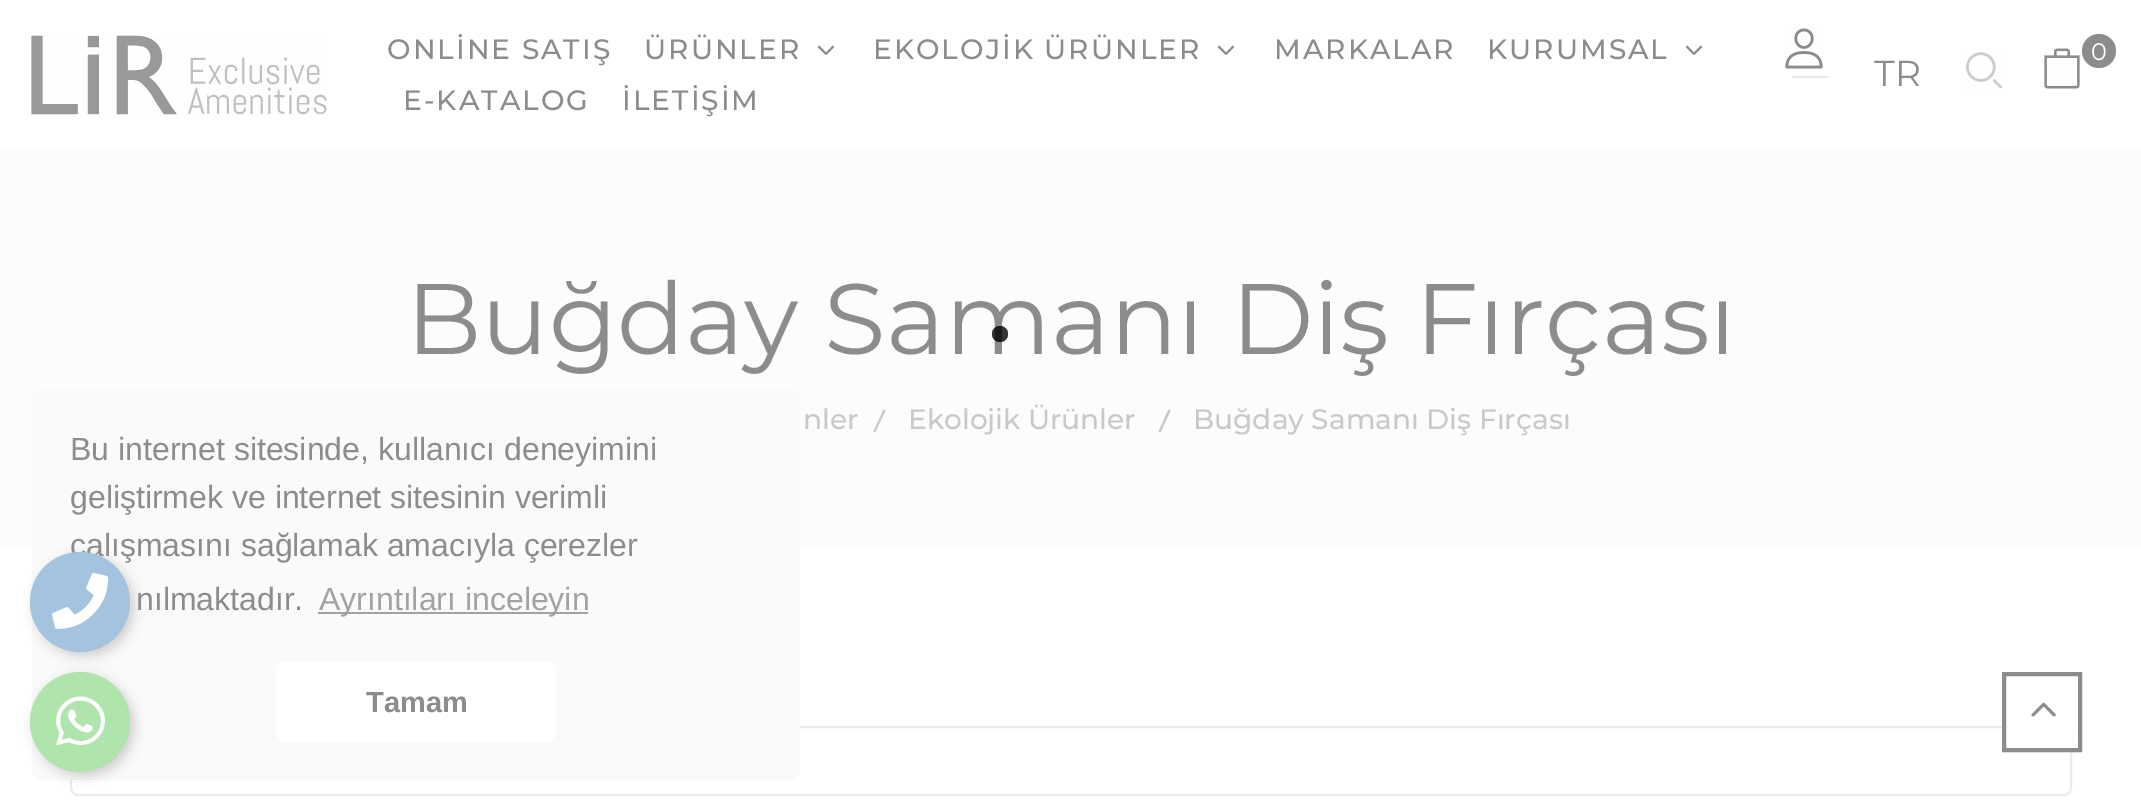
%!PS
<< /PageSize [2141 811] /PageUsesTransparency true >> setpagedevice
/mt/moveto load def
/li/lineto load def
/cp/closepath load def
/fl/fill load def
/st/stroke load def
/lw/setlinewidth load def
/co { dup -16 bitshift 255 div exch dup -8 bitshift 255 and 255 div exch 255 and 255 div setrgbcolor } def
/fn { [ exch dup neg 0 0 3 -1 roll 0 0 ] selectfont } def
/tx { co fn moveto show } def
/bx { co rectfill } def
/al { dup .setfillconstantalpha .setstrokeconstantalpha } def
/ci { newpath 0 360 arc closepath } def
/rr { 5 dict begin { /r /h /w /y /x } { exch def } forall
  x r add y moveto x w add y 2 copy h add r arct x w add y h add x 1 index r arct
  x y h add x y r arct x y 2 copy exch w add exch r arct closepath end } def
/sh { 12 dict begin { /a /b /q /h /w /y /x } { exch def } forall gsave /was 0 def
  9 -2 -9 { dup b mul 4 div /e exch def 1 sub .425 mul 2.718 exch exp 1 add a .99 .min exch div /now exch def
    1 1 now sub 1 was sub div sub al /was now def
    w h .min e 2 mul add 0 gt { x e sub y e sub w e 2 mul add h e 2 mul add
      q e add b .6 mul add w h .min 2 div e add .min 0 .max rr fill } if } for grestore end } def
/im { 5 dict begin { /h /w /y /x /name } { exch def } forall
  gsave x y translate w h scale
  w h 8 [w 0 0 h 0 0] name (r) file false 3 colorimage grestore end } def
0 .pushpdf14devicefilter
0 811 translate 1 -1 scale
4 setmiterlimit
0 0 2141 811 16#FFFFFF bx
(media/1.raw) 31 35 296 80 im
(media/2.raw) 817 45 18 10 im
(media/2.raw) 1217 45 18 10 im
(media/2.raw) 1685 45 18 10 im
(media/3.raw) 1785 28 38 41 im
1792 76 36 2 16#E8E8E8 bx
(media/4.raw) 1966 52 36 37 im
(media/5.raw) 2044 48 36 41 im
16#8C8C8C co
2099 51 17 ci fl
0 150 2141 396 16#FCFCFA bx
16#C9C9C9 co
883.5 409.5 mt 885.5 410.5 li 875 432.5 li 873.5 431.5 li cp fl
1168.5 409.5 mt 1170.5 410.5 li 1160.5 432.5 li 1158.5 431.5 li cp fl
16#E9ECEE co
2 lw
71 727 2000 68 7 rr st
16#FAFAFA co
32 388 768 392 10 rr fl
318 612 270 2 16#A2A2A2 bx
16#FFFFFF co
276 662 280 80 10 rr fl
16#8C8C8C co
34 556 100 100 50 6 .4 sh
34 676 100 100 50 6 .4 sh
16#AFE4AC co
80 722 50 ci fl
(media/7.raw) 56 696 49 50 im
2006 726 66 22 16#FFFFFF bx
16#8C8C8C co
4 lw
2004 674 76 76 rectstroke
(media/8.raw) 2031 702 25 15 im
/Montserrat-Medium 28 fn
387 59 mt 2 0 (ONLİNE SATIŞ) ashow
644 59 mt 2 0 (ÜRÜNLER) ashow
873 59 mt 2 0 (EKOLOJİK ÜRÜNLER) ashow
1274 59 mt 2 0 (MARKALAR) ashow
1487 59 mt 2 0 (KURUMSAL) ashow
403 110 mt 2 0 (E-KATALOG) ashow
622 110 mt 2 0 (İLETİŞİM) ashow
(TR) 1874 86 /Montserrat-Regular 36 16#8C8C8C tx
(0) 2091 60 /Montserrat-Regular 24 16#FFFFFF tx
(Buğday Samanı Diş Fırçası) 406 354 /Montserrat-Regular 100 16#8C8C8C tx
(nler) 803 429 /Montserrat-Medium 28 16#C9C9C9 tx
(Ekolojik Ürünler) 908 429 /Montserrat-Medium 28 16#C9C9C9 tx
(Buğday Samanı Diş Fırçası) 1193 429 /Montserrat-Medium 28 16#C9C9C9 tx
0.55 al
16#000000 co
1000 334 8 ci fl
1000 334 8 ci fl
1 al
(Bu internet sitesinde, kullanıcı deneyimini) 70 460 /LiberationSans-Regular 32 16#8C8C8C tx
(geliştirmek ve internet sitesinin verimli) 70 508 /LiberationSans-Regular 32 16#8C8C8C tx
(çalışmasını sağlamak amacıyla çerezler) 70 556 /LiberationSans-Regular 32 16#8C8C8C tx
(nılmaktadır.) 136 610 /LiberationSans-Regular 32 16#8C8C8C tx
(Ayrıntıları inceleyin) 319 610 /LiberationSans-Regular 32 16#A2A2A2 tx
(Tamam) 366 712 /LiberationSans-Bold 29 16#8C8C8C tx
16#A3C3DF co
80 602 50 ci fl
(media/6.raw) 52 573 57 56 im
.poppdf14devicefilter showpage
